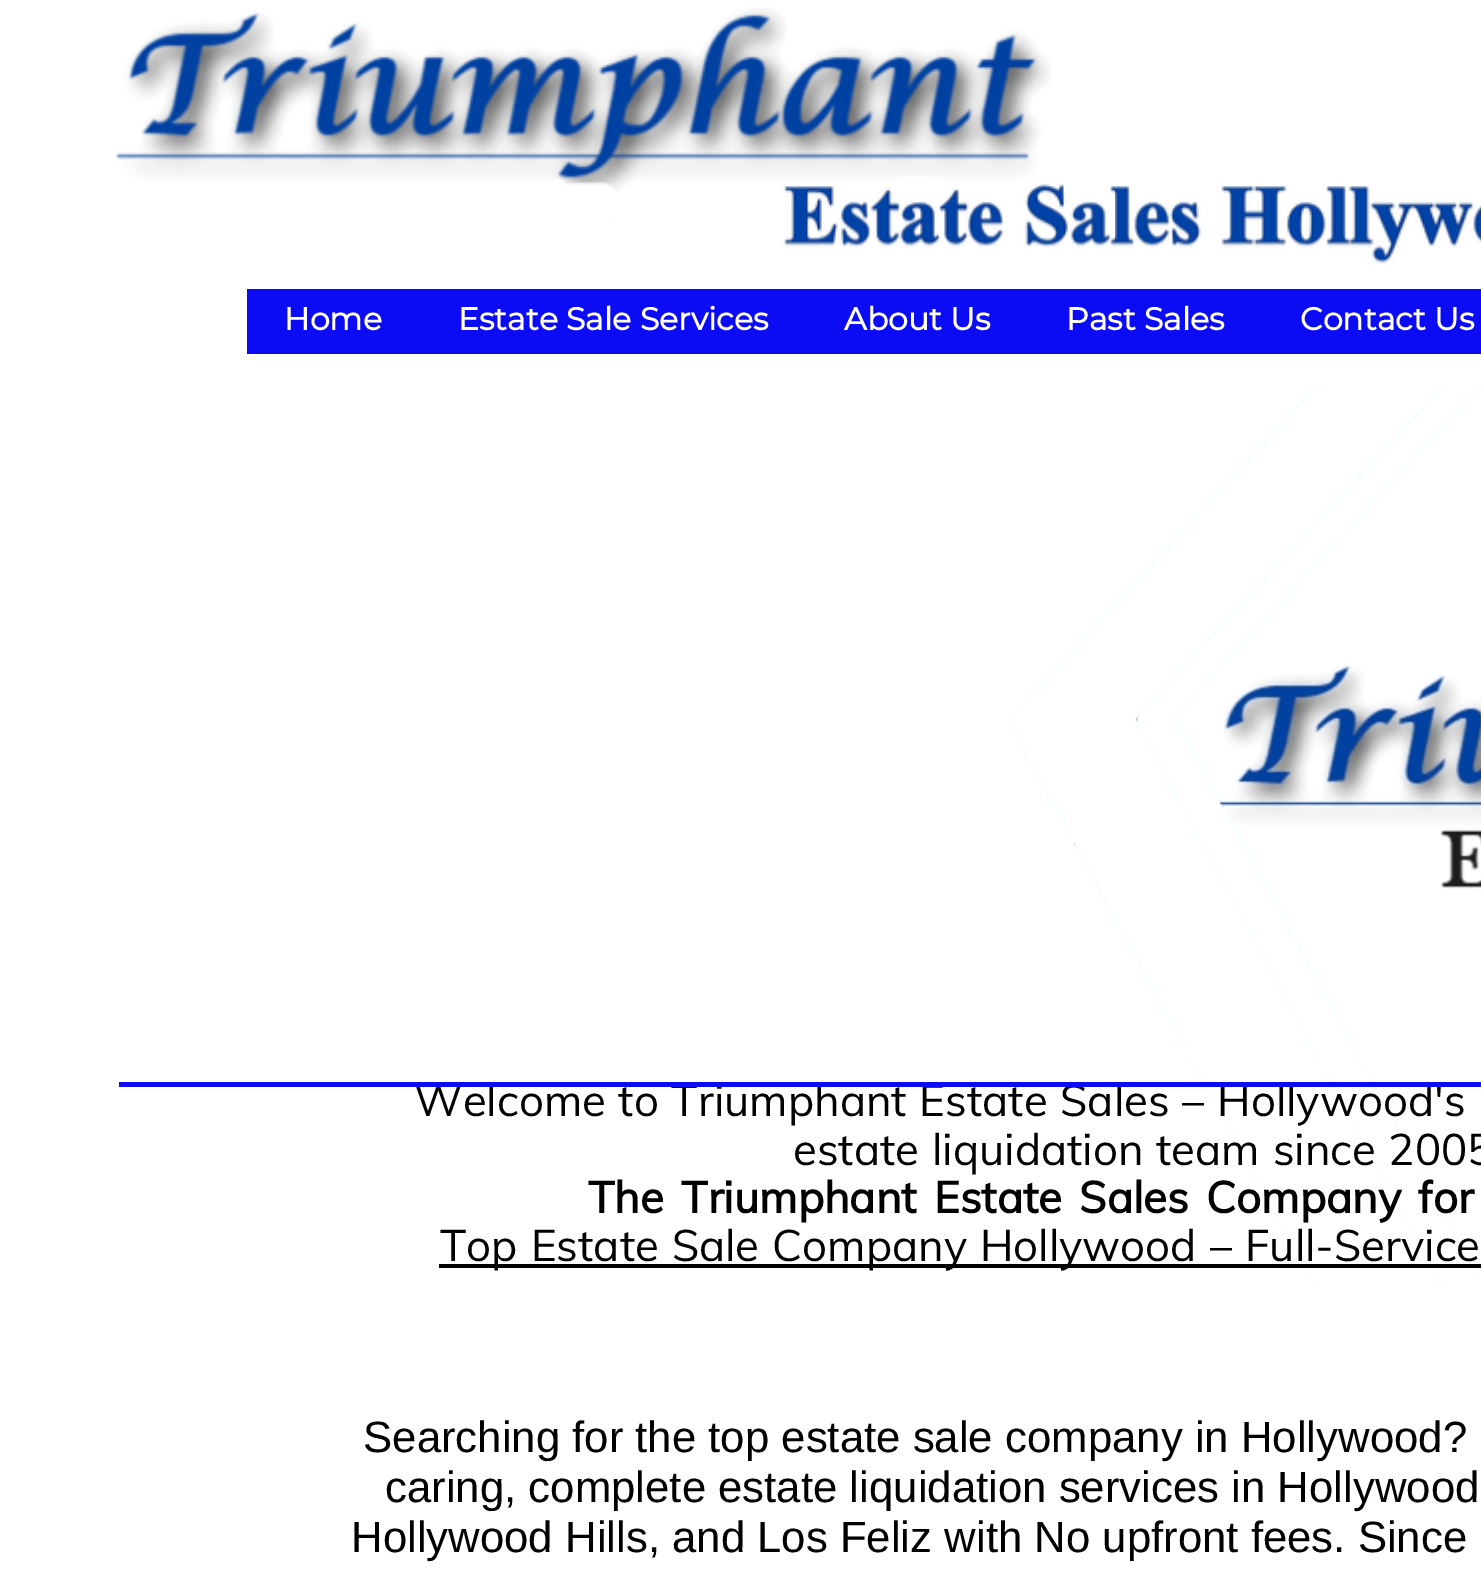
%!PS
<< /PageSize [1481 1569] >> setpagedevice
/mt/moveto load def
/co { dup -16 bitshift 255 div exch dup -8 bitshift 255 and 255 div exch 255 and 255 div setrgbcolor } def
/fn { [ exch dup neg 0 0 3 -1 roll 0 0 ] selectfont } def
/tx { co fn moveto show } def
/bx { co rectfill } def
/im { 5 dict begin { /h /w /y /x /name } { exch def } forall
  gsave x y translate w h scale
  w h 8 [w 0 0 h 0 0] name (r) file false 3 colorimage grestore end } def
0 1569 translate 1 -1 scale
4 setmiterlimit
0 0 1481 1569 16#FFFFFF bx
(media/1.raw) 115 7 1366 257 im
247 289 1234 65 16#0B0CF4 bx
(media/2.raw) 1010 385 471 904 im
439 1264 1042 4 16#000000 bx
(Home) 284 330 /Montserrat-Bold 31.5 16#FFFFFF tx
(Estate Sale Services) 458 330 /Montserrat-Bold 31.5 16#FFFFFF tx
(About Us) 844 330 /Montserrat-Bold 31.5 16#FFFFFF tx
(Past Sales) 1066 330 /Montserrat-Bold 31.5 16#FFFFFF tx
(Contact Us) 1300 330 /Montserrat-Bold 31.5 16#FFFFFF tx
/Muli-Regular 43.75 fn
16#000000 co
414 1116 mt 1.25 0 32 (Welcome to Triumphant Estate Sales – Hollywood's) widthshow
119 1082 1362 5 16#0B0CF4 bx
16#000000 co
793 1165 mt 1.25 0 32 (estate liquidation team since 2005) widthshow
/Muli-Bold 43.75 fn
588 1213 mt 6 0 32 (The Triumphant Estate Sales Company for) widthshow
/Muli-Regular 43.75 fn
440 1261 mt 1.5 0 32 (Top Estate Sale Company Hollywood – Full-Service) widthshow
(Searching for the top estate sale company in Hollywood?) 363 1452 /LiberationSans-Regular 43.75 16#000000 tx
(caring, complete estate liquidation services in Hollywood) 385 1502 /LiberationSans-Regular 43.75 16#000000 tx
(Hollywood Hills, and Los Feliz with No upfront fees. Since) 351 1552 /LiberationSans-Regular 43.75 16#000000 tx
showpage
